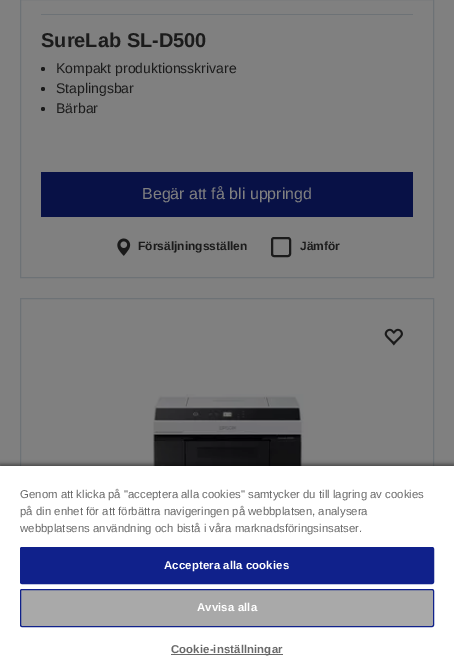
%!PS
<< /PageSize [454 672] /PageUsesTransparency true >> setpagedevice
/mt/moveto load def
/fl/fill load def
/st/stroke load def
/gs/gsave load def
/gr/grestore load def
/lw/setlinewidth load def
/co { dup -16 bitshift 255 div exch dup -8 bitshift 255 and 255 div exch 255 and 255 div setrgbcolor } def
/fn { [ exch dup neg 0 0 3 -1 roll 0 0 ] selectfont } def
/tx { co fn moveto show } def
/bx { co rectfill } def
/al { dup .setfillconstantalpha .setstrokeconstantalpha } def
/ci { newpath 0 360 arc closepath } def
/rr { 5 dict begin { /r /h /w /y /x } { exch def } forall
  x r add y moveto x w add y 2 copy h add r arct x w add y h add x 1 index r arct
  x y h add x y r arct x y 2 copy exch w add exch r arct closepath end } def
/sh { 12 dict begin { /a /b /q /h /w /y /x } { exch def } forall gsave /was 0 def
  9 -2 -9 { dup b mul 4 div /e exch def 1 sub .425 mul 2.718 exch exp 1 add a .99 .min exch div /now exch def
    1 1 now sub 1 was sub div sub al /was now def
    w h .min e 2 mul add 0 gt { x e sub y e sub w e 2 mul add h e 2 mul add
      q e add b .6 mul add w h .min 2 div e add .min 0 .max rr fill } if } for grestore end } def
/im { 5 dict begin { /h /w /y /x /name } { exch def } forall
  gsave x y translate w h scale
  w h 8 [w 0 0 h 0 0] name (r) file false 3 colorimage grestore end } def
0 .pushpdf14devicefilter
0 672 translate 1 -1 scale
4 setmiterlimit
0 0 454 672 16#808080 bx
16#6D7276 co
20.5 -.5 413 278 rectstroke
41 14 372 1 16#6D7276 bx
16#1B1B1B co
43 69 2 ci fl
43 89 2 ci fl
43 109 2 ci fl
41 172 372 45 16#081146 bx
(media/1.raw) 117 238 14 18 im
16#1B1B1B co
2 lw
272 238 18 18 2 rr st
16#6D7276 co
1 lw
20.5 298.5 413 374 rectstroke
(media/2.raw) 384 328 19 18 im
(media/3.raw) 98 394 261 72 im
16#000000 co
0 464 454 208 0 2 .35 sh
0 466 454 206 0 2 .2 sh
0 466 454 206 16#FFFFFF bx
16#10218B co
20.5 547.5 413 36 1.5 rr gs fl gr
st
16#A9A9A9 co
20.5 589.5 413 37 1.5 rr gs fl gr
16#10218B co
st
171 654 112 1 16#696969 bx
(SureLab SL-D500) 41 47 /LiberationSans-Bold 20 16#1B1B1B tx
(Kompakt produktionsskrivare) 56 73 /LiberationSans-Regular 14 16#1B1B1B tx
(Staplingsbar) 56 93 /LiberationSans-Regular 14 16#1B1B1B tx
(Bärbar) 56 113 /LiberationSans-Regular 14 16#1B1B1B tx
(Begär att få bli uppringd) 142 199 /LiberationSans-Regular 16 16#808080 tx
(Försäljningsställen) 138 250 /LiberationSans-Bold 12 16#1B1B1B tx
(Jämför) 300 250 /LiberationSans-Bold 12 16#1B1B1B tx
(Genom att klicka på "acceptera alla cookies" samtycker du till lagring av cookies) 20 498 /LiberationSans-Regular 11.4 16#696969 tx
(på din enhet för att förbättra navigeringen på webbplatsen, analysera) 20 515 /LiberationSans-Regular 11.4 16#696969 tx
(webbplatsens användning och bistå i våra marknadsföringsinsatser.) 20 532 /LiberationSans-Regular 11.4 16#696969 tx
/LiberationSans-Bold 11.4 fn
16#FFFFFF co
164 569 mt .1 0 (Acceptera alla cookies) ashow
197 611 mt .1 0 (Avvisa alla) ashow
16#696969 co
171 653 mt .1 0 (Cookie-inställningar) ashow
.poppdf14devicefilter showpage
